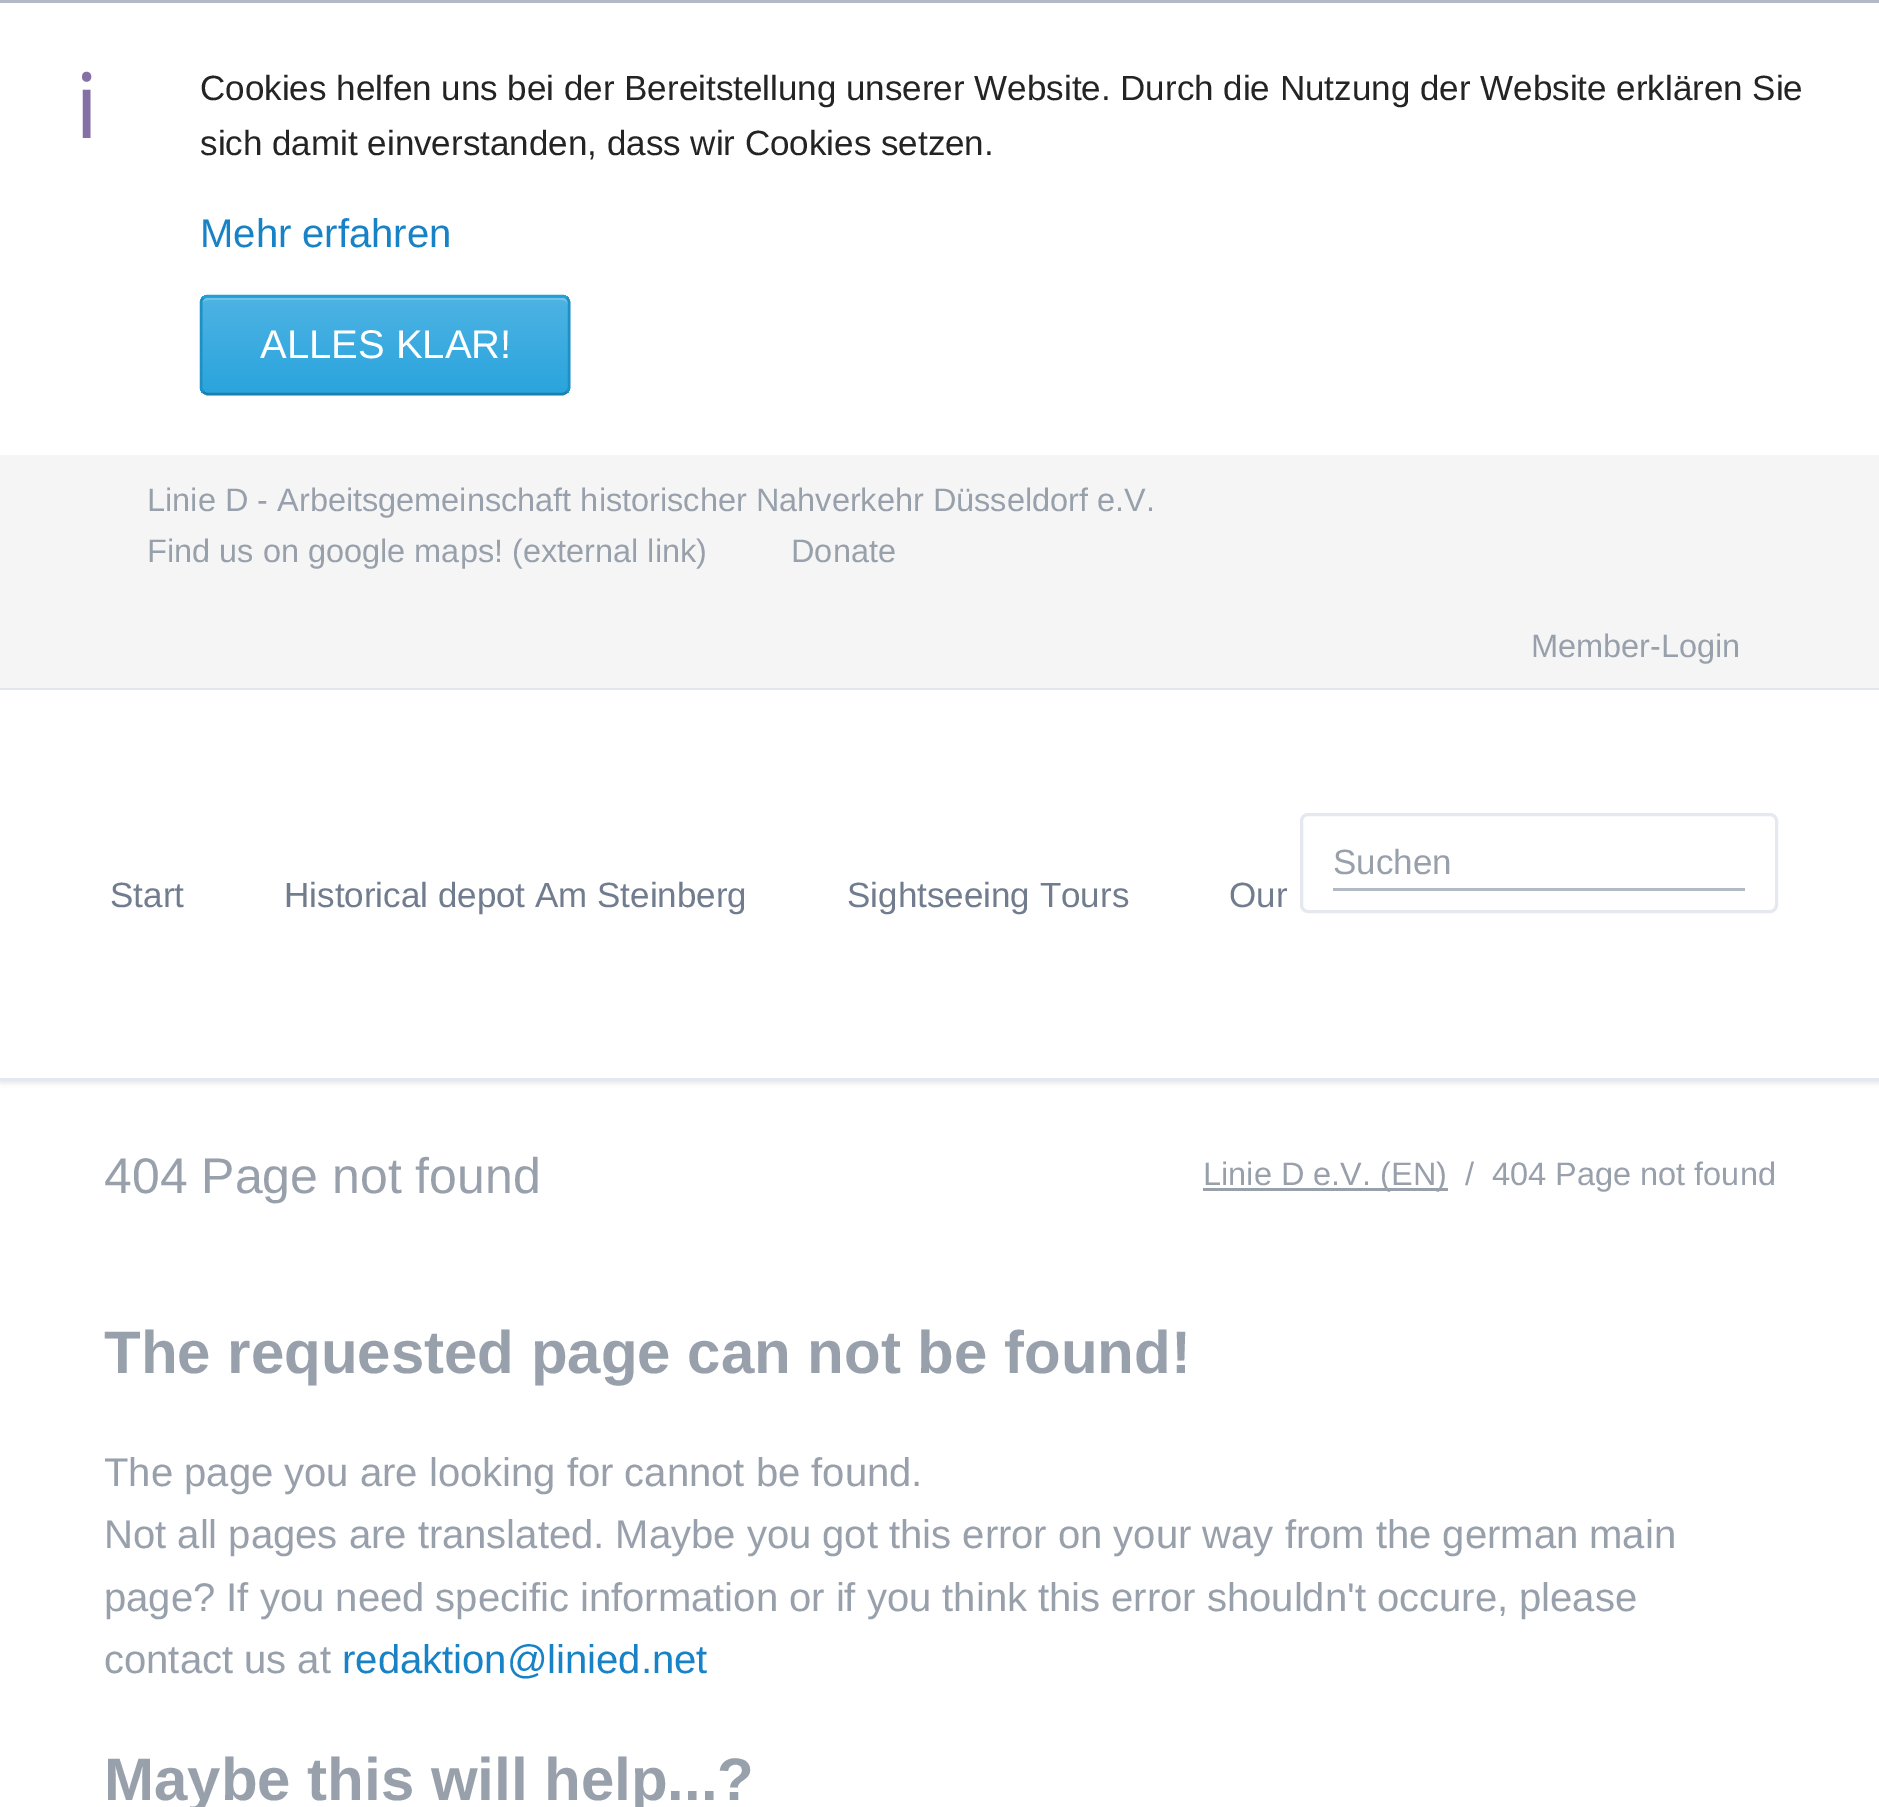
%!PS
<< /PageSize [1879 1807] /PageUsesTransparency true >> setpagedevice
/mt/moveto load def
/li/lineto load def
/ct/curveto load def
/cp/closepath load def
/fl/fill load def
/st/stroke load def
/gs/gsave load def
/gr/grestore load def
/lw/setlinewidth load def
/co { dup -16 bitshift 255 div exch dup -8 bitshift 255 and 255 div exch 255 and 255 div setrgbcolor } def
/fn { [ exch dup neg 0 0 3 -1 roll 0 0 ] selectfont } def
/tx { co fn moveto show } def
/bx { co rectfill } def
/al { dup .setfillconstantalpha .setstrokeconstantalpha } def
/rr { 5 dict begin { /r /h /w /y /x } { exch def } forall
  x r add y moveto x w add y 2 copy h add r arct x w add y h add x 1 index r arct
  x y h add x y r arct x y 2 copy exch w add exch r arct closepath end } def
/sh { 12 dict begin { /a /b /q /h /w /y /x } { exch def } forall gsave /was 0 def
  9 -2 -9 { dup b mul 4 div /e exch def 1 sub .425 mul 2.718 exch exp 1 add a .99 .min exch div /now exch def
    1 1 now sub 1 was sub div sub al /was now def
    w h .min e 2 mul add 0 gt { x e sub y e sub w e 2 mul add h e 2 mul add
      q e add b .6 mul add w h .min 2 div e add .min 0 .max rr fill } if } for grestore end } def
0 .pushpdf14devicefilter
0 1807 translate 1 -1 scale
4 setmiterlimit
0 0 1879 1807 16#FFFFFF bx
0 0 1879 3 16#B2B9C4 bx
gs
200 295 370 100 8 rr clip newpath
gs 200 295 mt 570 295 li 570 298 li 200 298 li cp clip newpath
<< /ShadingType 2 /ColorSpace /DeviceRGB /Coords [385 202 385 298] /Extend [true true] /Function << /FunctionType 2 /Domain [0 1] /C0 [.302 .702 .89] /C1 [.165 .643 .867] /N 1 >> >> shfill gr
gs 200 298 mt 570 298 li 570 393 li 200 393 li cp clip newpath
<< /ShadingType 2 /ColorSpace /DeviceRGB /Coords [385 297 385 393] /Extend [true true] /Function << /FunctionType 2 /Domain [0 1] /C0 [.302 .702 .89] /C1 [.165 .643 .867] /N 1 >> >> shfill gr
gr
16#73C3E8 co
208 300 mt 562 300 li 565 300 568 302 568 305 ct 568 302 567 298 563 298 ct 208 298 li 206 298 203 300 203 302 ct 204 301 206 300 208 300 ct cp fl
16#23A0DA co
2.5 lw
203 298 mt 204.5 297 206 296 207.5 296 ct 562.5 296 li 564 296 565.5 297 567 298 ct st
16#1F90C4 co
567 298 mt 568 299.5 569 301 569 302.5 ct 569 387.5 li 569 389 568 390.5 567 392 ct st
16#1C80AE co
567 392 mt 565.5 393 564 394 562.5 394 ct 207.5 394 li 206 394 204.5 393 203 392 ct st
16#1F90C4 co
203 392 mt 202 390.5 201 389 201 387.5 ct 201 302.5 li 201 301 202 299.5 203 298 ct st
0 455 1879 233 16#F5F5F5 bx
0 688 1879 2 16#E5E8EE bx
16#000000 co
0 693 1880 390 0 2.5 .1 sh
0 690 1879 388 16#FFFFFF bx
0 1078 1879 3 16#E5E8EE bx
3 lw
1301.5 814.5 475 97 6.5 rr st
1333 888 412 3 16#B2B9C4 bx
1203 1188 245 3 16#98A0AB bx
(ℹ) 75 138 /NotoSans-Regular 90 16#8570A6 tx
(Cookies helfen uns bei der Bereitstellung unserer Website. Durch die Nutzung der Website erklären Sie) 200 100 /LiberationSans-Regular 35 16#242424 tx
(sich damit einverstanden, dass wir Cookies setzen.) 200 155 /LiberationSans-Regular 35 16#242424 tx
(Mehr erfahren) 200 247 /LiberationSans-Regular 40 16#1782C5 tx
(ALLES KLAR!) 260 358 /LiberationSans-Regular 40 16#FFFFFF tx
(Linie D - Arbeitsgemeinschaft historischer Nahverkehr Düsseldorf e.V.) 147 511 /LiberationSans-Regular 32.5 16#98A0AB tx
(Find us on google maps! \(external link\)) 147 562 /LiberationSans-Regular 32.5 16#98A0AB tx
(Donate) 791 562 /LiberationSans-Regular 32.5 16#98A0AB tx
(Member-Login) 1531 657 /LiberationSans-Regular 32.5 16#98A0AB tx
(Suchen) 1333 874 /LiberationSans-Regular 35 16#98A0AB tx
(Start) 110 907 /LiberationSans-Regular 35 16#717C8E tx
(Historical depot Am Steinberg) 284 907 /LiberationSans-Regular 35 16#717C8E tx
(Sightseeing Tours) 847 907 /LiberationSans-Regular 35 16#717C8E tx
(Our) 1229 907 /LiberationSans-Regular 35 16#717C8E tx
(404 Page not found) 104 1193 /LiberationSans-Regular 50 16#98A0AB tx
(Linie D e.V. \(EN\)) 1203 1185 /LiberationSans-Regular 32.5 16#98A0AB tx
(/) 1465 1185 /LiberationSans-Regular 32.5 16#98A0AB tx
(404 Page not found) 1492 1185 /LiberationSans-Regular 32.5 16#98A0AB tx
(The requested page can not be found!) 104 1373 /LiberationSans-Bold 60 16#98A0AB tx
(The page you are looking for cannot be found.) 104 1486 /LiberationSans-Regular 40 16#98A0AB tx
(Not all pages are translated. Maybe you got this error on your way from the german main) 104 1548 /LiberationSans-Regular 40 16#98A0AB tx
(page? If you need specific information or if you think this error shouldn't occure, please) 104 1611 /LiberationSans-Regular 40 16#98A0AB tx
(contact us at) 104 1673 /LiberationSans-Regular 40 16#98A0AB tx
(redaktion@linied.net) 342 1673 /LiberationSans-Regular 40 16#1782C5 tx
(Maybe this will help...?) 104 1800 /LiberationSans-Bold 60 16#98A0AB tx
.poppdf14devicefilter showpage
